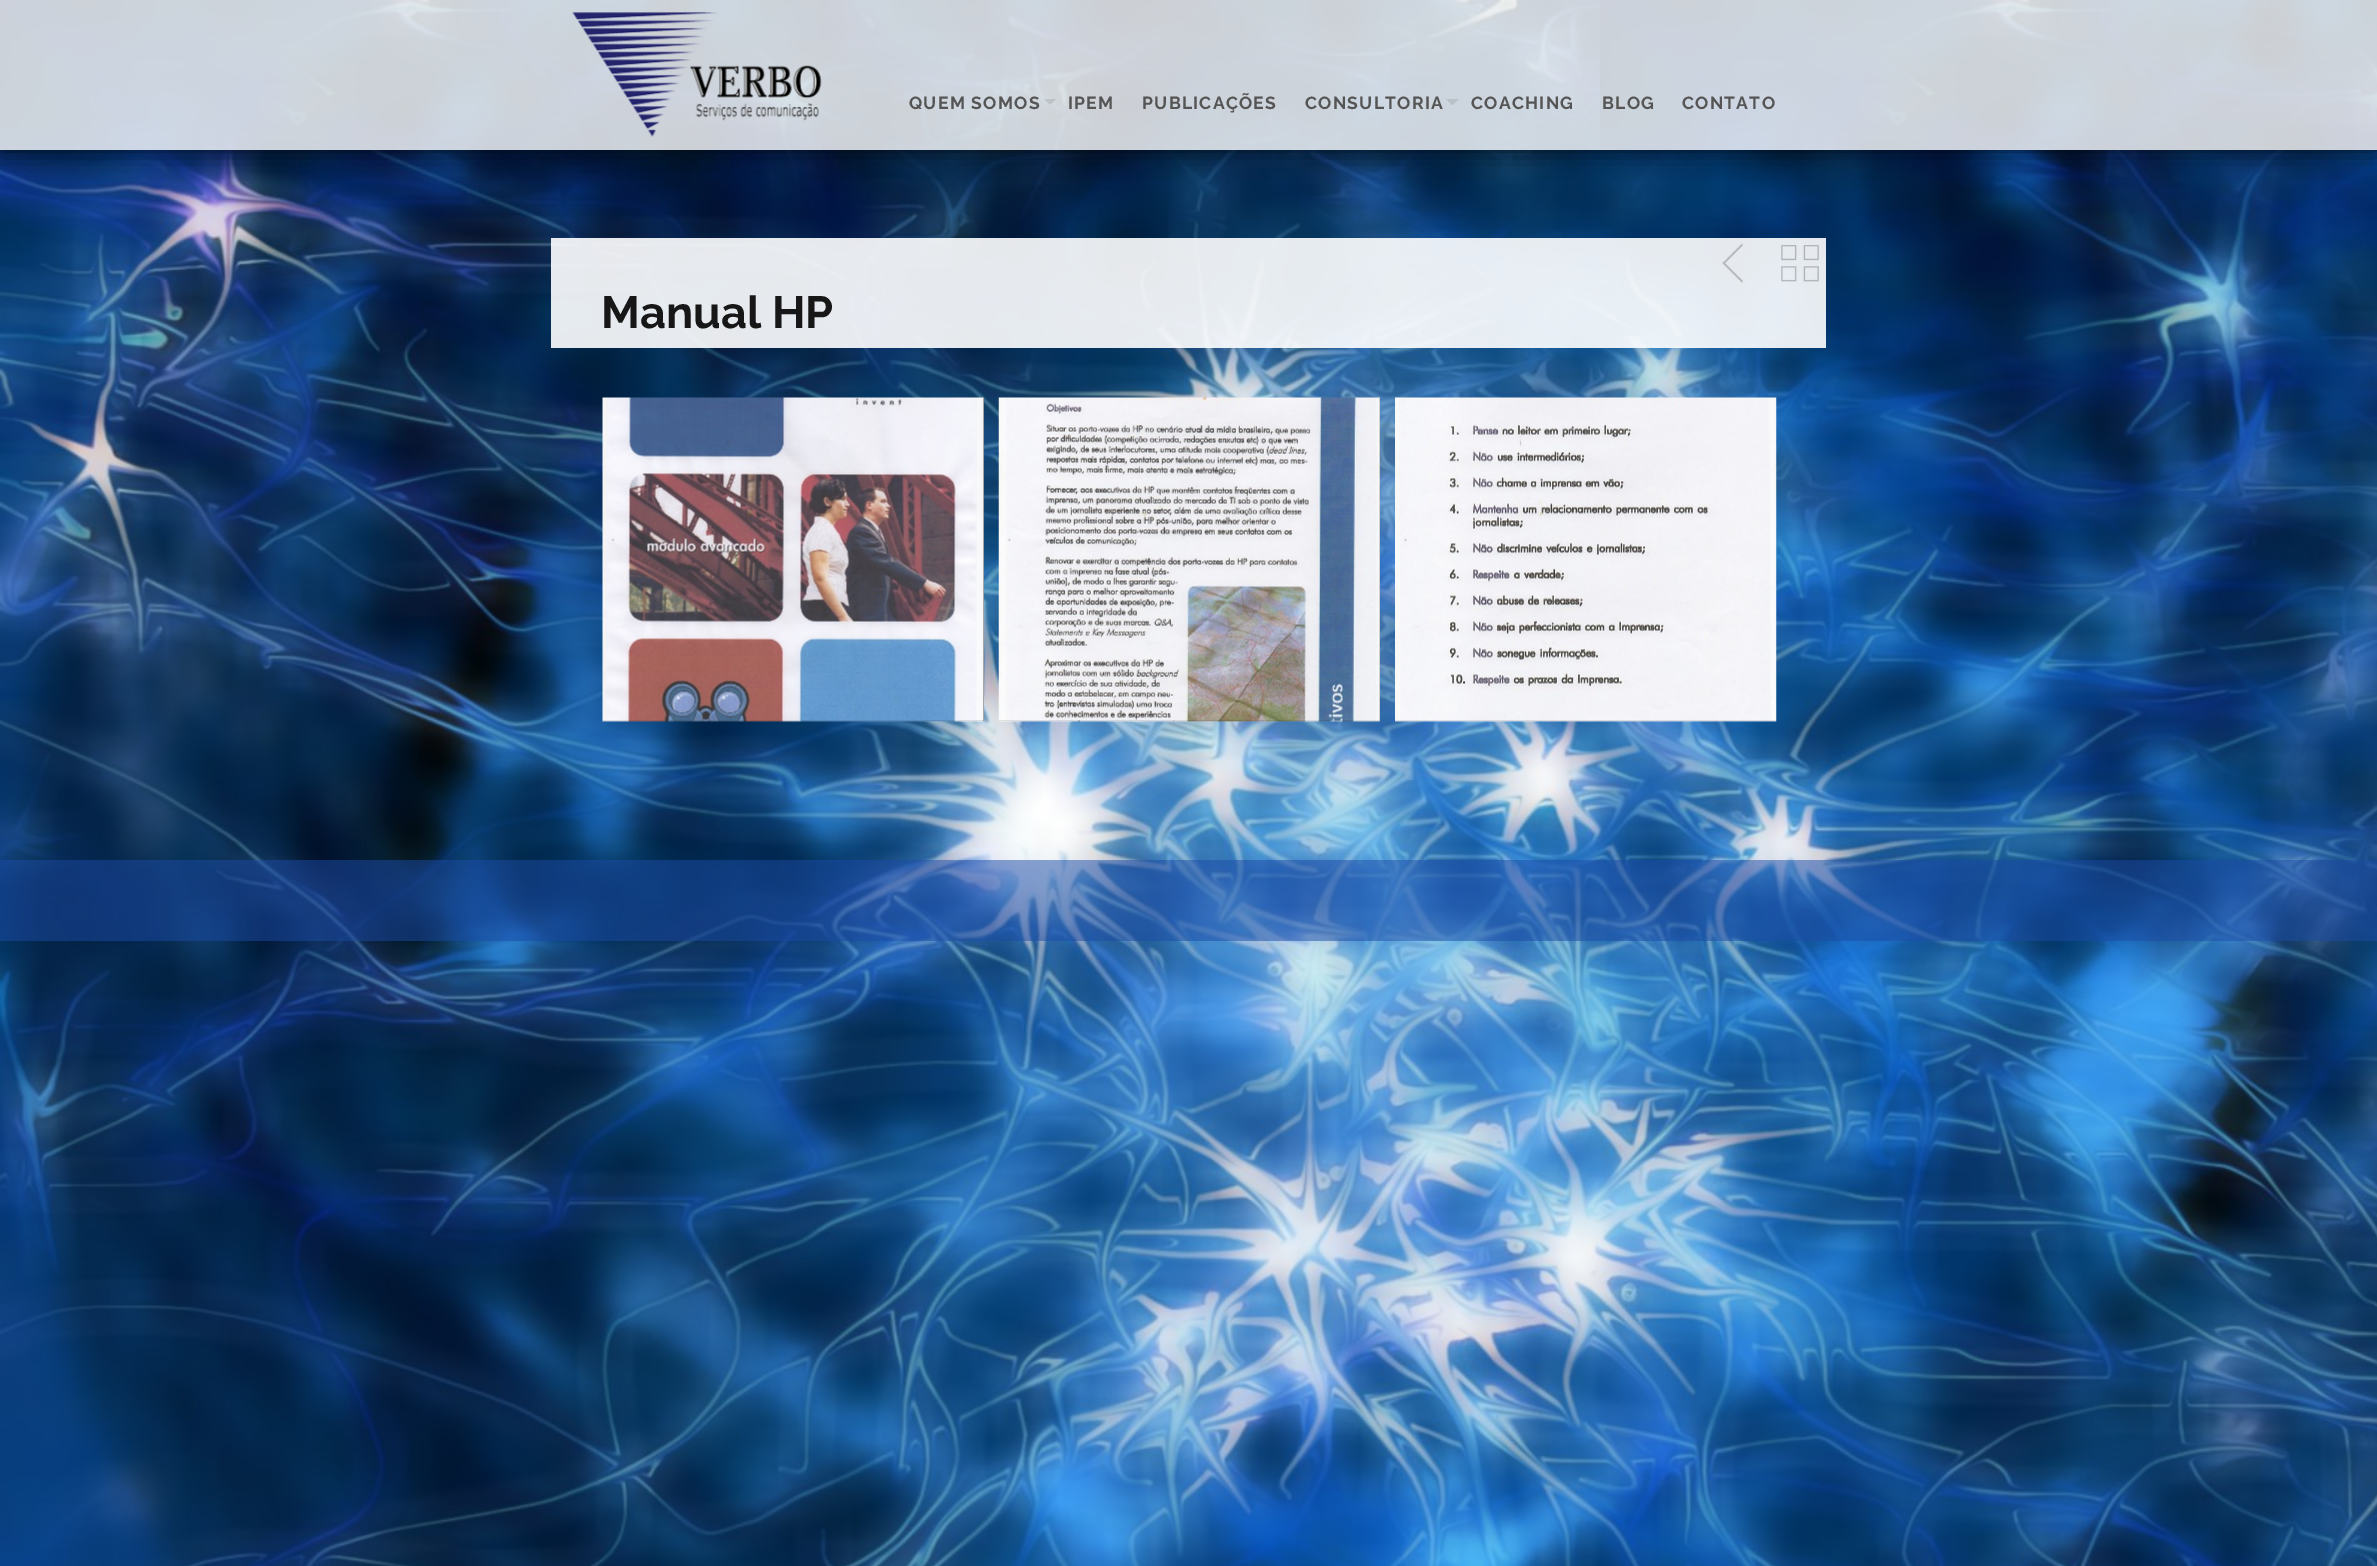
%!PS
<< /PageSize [2377 1566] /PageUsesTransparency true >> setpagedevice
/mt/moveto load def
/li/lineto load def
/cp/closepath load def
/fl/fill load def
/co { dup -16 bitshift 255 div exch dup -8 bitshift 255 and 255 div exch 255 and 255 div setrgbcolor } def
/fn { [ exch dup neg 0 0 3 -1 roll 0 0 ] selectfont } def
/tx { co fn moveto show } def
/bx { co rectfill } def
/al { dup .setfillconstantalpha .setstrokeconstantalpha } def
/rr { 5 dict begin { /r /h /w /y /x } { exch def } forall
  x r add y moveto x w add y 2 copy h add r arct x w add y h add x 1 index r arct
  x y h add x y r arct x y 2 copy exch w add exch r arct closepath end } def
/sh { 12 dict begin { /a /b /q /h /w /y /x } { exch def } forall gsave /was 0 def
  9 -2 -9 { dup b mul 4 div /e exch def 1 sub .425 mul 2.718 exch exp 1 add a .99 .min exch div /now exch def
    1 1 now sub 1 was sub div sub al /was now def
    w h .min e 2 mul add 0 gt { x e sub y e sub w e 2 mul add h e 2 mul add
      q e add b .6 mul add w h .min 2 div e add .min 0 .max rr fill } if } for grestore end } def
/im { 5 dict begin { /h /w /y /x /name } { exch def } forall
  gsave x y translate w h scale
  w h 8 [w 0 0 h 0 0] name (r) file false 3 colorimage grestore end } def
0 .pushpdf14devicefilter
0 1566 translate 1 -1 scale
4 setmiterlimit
0 0 2377 1566 16#FFFFFF bx
(media/1.raw) 0 150 2377 1416 im
16#000000 co
0 0 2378 150 0 13 .75 sh
(media/2.raw) 0 0 2377 150 im
(media/3.raw) 572 12 250 125 im
0.1 al
1044 99 mt 1056 99 li 1050 105 li cp fl
1 al
16#B9C0C8 co
1446 99 mt 1459 99 li 1452.5 105 li cp fl
0.9 al
551 238 1275 110 16#FFFFFF bx
1 al
(media/4.raw) 1722 243 21 40 im
(media/5.raw) 1781 245 38 37 im
603 398 381 323 16#222222 bx
(media/6.raw) 602 397 382 325 im
(media/7.raw) 998 397 382 325 im
(media/8.raw) 1395 397 382 325 im
0.5 al
0 860 2377 81 16#1B4AA6 bx
/Raleway-Bold 17.5 fn
1 al
16#555555 co
909 109 mt 1.25 0 (QUEM SOMOS) ashow
1068 109 mt 1.25 0 (IPEM) ashow
1142 109 mt 1.25 0 (PUBLICAÇÕES) ashow
1305 109 mt 1.25 0 (CONSULTORIA) ashow
1471 109 mt 1.25 0 (COACHING) ashow
1602 109 mt 1.25 0 (BLOG) ashow
1682 109 mt 1.25 0 (CONTATO) ashow
(Manual HP) 601 328 /Raleway-Bold 45 16#171718 tx
.poppdf14devicefilter showpage
